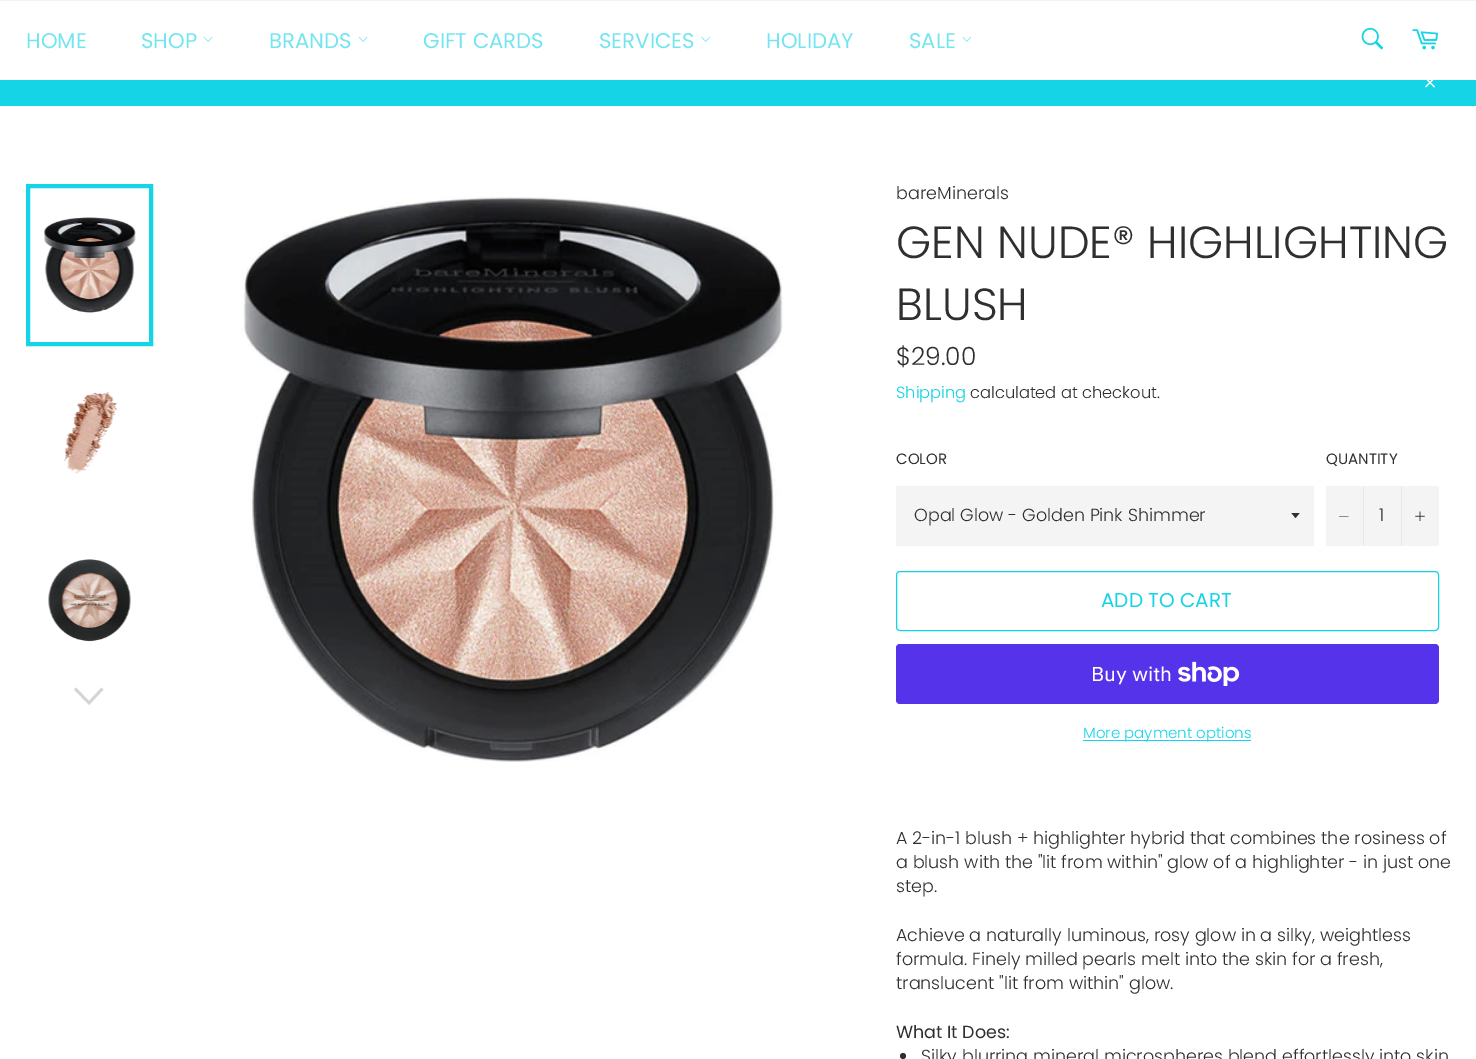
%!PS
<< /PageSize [1476 1059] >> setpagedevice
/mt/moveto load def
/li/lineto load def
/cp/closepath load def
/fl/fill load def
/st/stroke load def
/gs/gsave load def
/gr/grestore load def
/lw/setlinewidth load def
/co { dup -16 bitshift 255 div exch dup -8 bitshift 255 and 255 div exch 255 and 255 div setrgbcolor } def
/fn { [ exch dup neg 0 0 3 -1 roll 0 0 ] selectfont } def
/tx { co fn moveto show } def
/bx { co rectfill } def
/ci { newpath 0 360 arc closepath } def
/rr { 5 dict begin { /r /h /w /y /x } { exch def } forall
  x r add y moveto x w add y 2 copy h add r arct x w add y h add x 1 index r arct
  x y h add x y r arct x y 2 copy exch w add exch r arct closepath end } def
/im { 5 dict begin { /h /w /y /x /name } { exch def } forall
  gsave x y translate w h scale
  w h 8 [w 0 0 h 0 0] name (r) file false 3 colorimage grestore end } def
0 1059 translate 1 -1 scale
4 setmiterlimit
0 0 1476 1059 16#FFFFFF bx
0 0 1476 1 16#F2F2F2 bx
(media/1.raw) 203 36 10 6 im
(media/1.raw) 358 36 10 6 im
(media/2.raw) 701 36 9 6 im
(media/3.raw) 962 36 10 6 im
(media/4.raw) 1361 27 23 23 im
(media/5.raw) 1412 29 26 21 im
0 80 1476 26 16#15D4E6 bx
(media/6.raw) 1425 80 10 8 im
(media/7.raw) 44 217 92 99 im
4 lw
28 186 123 158 rectstroke
(media/8.raw) 64 392 53 82 im
(media/9.raw) 48 559 83 83 im
16#D5D5D5 co
101.5 687.5 mt 103.5 689.5 li 89 705 li 74 689.5 li 76 687.5 li 89 701 li cp fl
(media/10.raw) 241 197 542 565 im
896 486 418 60 16#F4F4F4 bx
gs
1291 513 10 6 rectclip
16#2F2F2F co
1291 512.5 mt 1295.5 518 li 1300 512.5 li cp fl
gr
1326 486 113 60 16#F4F4F4 bx
1363 486 1 60 16#E7E7E7 bx
16#2F2F2F co
1348.5 516 mt 1348.5 516.5 li 1339 516.5 li 1339 516 li cp eofill
1401 486 1 60 16#E7E7E7 bx
(media/11.raw) 1415 511 10 10 im
16#15D4E6 co
1 lw
896.5 571.5 542 59 3.5 rr st
16#5433EB co
896 644 543 60 4 rr fl
(media/12.raw) 1178 661 62 25 im
1083 740 168 1 16#15D4E6 bx
16#2F2F2F co
903 1056 3 ci fl
(HOME) 26 48 /Poppins-Regular 21.25 16#73E5F0 tx
(SHOP) 141 48 /Poppins-Regular 21.25 16#73E5F0 tx
(BRANDS) 269 48 /Poppins-Regular 21.25 16#73E5F0 tx
(GIFT CARDS) 423 48 /Poppins-Regular 21.25 16#73E5F0 tx
(SERVICES) 599 48 /Poppins-Regular 21.25 16#73E5F0 tx
(HOLIDAY) 766 48 /Poppins-Regular 21.25 16#73E5F0 tx
(SALE) 909 48 /Poppins-Regular 21.25 16#73E5F0 tx
(bareMinerals) 896 199 /Poppins-Light 17.5 16#2F2F2F tx
(GEN NUDE® HIGHLIGHTING) 896 258 /Poppins-Light 45 16#2F2F2F tx
(BLUSH) 896 320 /Poppins-Light 45 16#2F2F2F tx
($29.00) 896 365 /Poppins-Light 25 16#2F2F2F tx
(Shipping) 896 398 /Poppins-Light 16.25 16#15D4E6 tx
(calculated at checkout.) 970 398 /Poppins-Light 16.25 16#2F2F2F tx
(COLOR) 896 464 /Poppins-Regular 15 16#2F2F2F tx
(Opal Glow - Golden Pink Shimmer) 914 521 /Poppins-Light 17.5 16#2F2F2F tx
(QUANTITY) 1326 464 /Poppins-Regular 15 16#2F2F2F tx
(1) 1379 521 /Poppins-Light 17.5 16#2F2F2F tx
(ADD TO CART) 1101 607 /Poppins-Regular 20 16#15D4E6 tx
(Buy with) 1091 681 /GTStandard-Regular 20 16#FFFFFF tx
(More payment options) 1083 738 /Poppins-Light 15 16#15D4E6 tx
(A 2-in-1 blush + highlighter hybrid that combines the rosiness of) 896 844 /Poppins-Light 17.5 16#2F2F2F tx
(a blush with the "lit from within" glow of a highlighter - in just one) 896 868 /Poppins-Light 17.5 16#2F2F2F tx
(step.) 896 892 /Poppins-Light 17.5 16#2F2F2F tx
(Achieve a naturally luminous, rosy glow in a silky, weightless) 896 941 /Poppins-Light 17.5 16#2F2F2F tx
(formula. Finely milled pearls melt into the skin for a fresh,) 896 965 /Poppins-Light 17.5 16#2F2F2F tx
(translucent "lit from within" glow.) 896 989 /Poppins-Light 17.5 16#2F2F2F tx
(What It Does:) 896 1038 /Poppins-Regular 17.5 16#2F2F2F tx
(Silky blurring mineral microspheres blend effortlessly into skin) 921 1062 /Poppins-Light 17.5 16#2F2F2F tx
showpage
